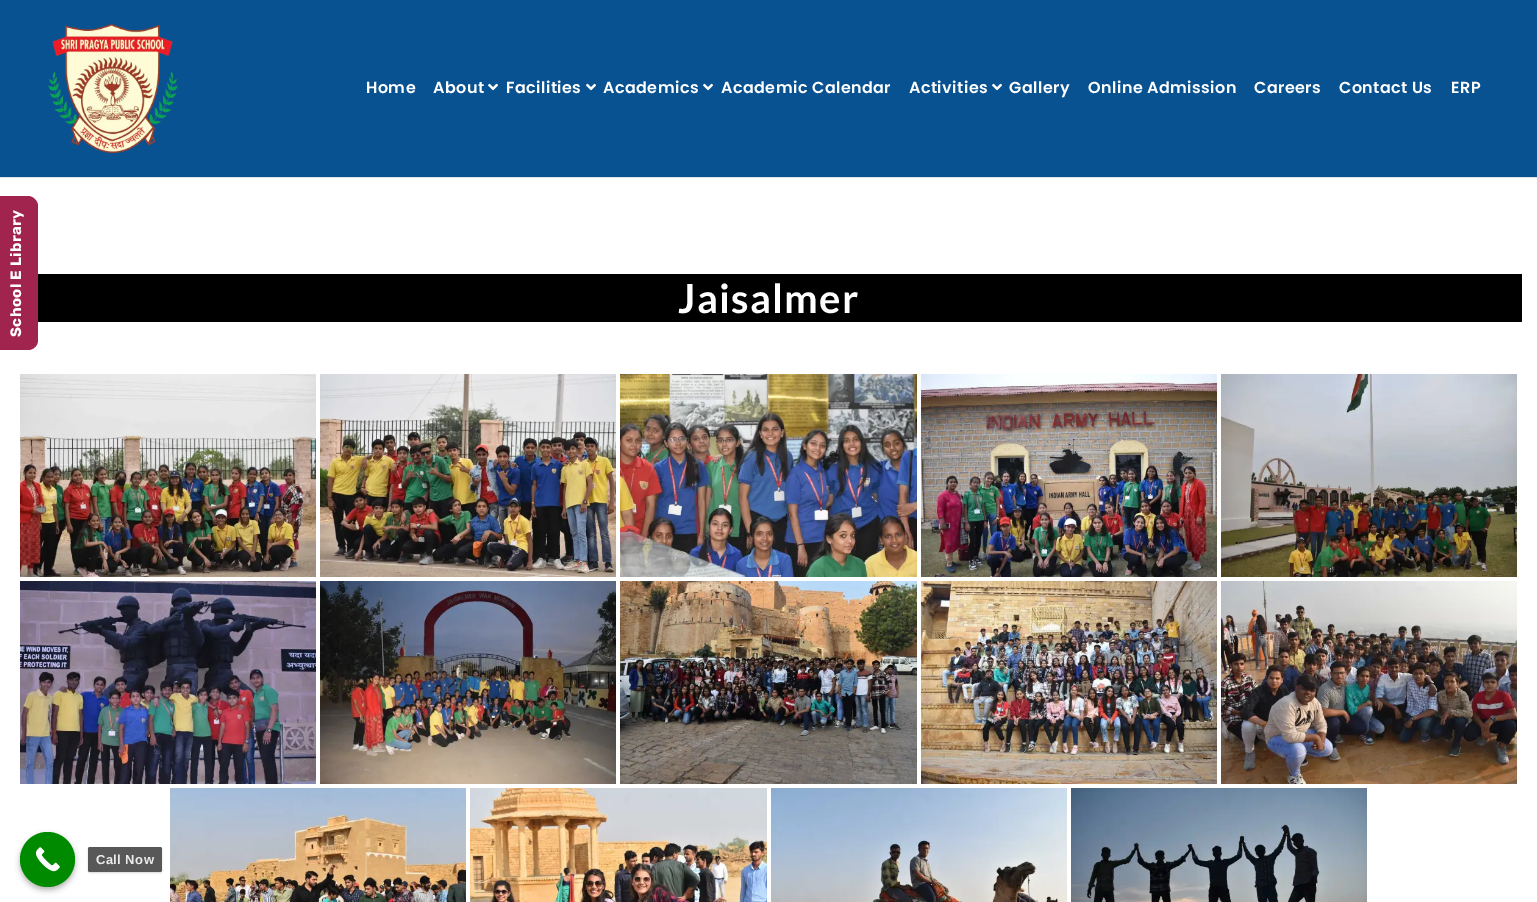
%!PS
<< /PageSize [1537 902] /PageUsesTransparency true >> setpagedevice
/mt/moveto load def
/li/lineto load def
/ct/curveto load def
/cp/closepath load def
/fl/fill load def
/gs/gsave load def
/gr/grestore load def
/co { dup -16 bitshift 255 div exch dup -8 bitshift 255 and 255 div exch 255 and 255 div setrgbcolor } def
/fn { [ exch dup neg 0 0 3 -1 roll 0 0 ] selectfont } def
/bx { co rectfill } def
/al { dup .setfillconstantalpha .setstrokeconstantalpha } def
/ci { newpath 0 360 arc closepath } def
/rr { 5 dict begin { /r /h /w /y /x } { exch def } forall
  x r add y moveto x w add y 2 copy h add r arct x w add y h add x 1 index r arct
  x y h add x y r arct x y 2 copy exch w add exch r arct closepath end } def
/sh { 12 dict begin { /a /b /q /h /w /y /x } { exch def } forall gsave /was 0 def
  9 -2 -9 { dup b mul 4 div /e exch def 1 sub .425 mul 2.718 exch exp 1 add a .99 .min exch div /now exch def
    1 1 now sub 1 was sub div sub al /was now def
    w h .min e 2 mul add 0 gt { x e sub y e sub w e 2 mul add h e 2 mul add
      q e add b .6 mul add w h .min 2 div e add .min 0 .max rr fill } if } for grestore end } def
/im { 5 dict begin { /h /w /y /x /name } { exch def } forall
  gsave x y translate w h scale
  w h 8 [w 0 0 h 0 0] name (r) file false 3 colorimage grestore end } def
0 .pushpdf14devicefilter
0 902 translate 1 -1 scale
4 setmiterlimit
0 0 1537 902 16#FFFFFF bx
16#A0244E co
-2 350 mt -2 196 li 28 196 li 33 196 38 201 38 206 ct 38 340 li 38 346 33 350 28 350 ct cp fl
0 0 1537 177 16#085291 bx
0 177 1537 1 16#DEE2E6 bx
(media/1.raw) 48 24 130 129 im
(media/2.raw) 488 83 10 8 im
(media/2.raw) 586 83 10 8 im
(media/2.raw) 703 83 10 8 im
(media/2.raw) 992 83 10 8 im
38 274 1484 48 16#000000 bx
(media/3.raw) 20 374 296 203 im
(media/4.raw) 320 374 296 203 im
(media/5.raw) 620 374 297 203 im
(media/6.raw) 921 374 296 203 im
(media/7.raw) 1221 374 296 203 im
(media/8.raw) 20 581 296 203 im
(media/9.raw) 320 581 296 203 im
(media/10.raw) 620 581 297 203 im
(media/11.raw) 921 581 296 203 im
(media/12.raw) 1221 581 296 203 im
(media/13.raw) 170 788 296 114 im
(media/14.raw) 470 788 297 114 im
(media/15.raw) 771 788 296 114 im
(media/16.raw) 1071 788 296 114 im
20 835 55 55 27.5 3 .3 sh
16#008A00 co
47.5 859.5 27.5 ci fl
(media/17.raw) 35 847 25 25 im
gs
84 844 mt 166 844 li 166 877 li 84 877 li cp 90 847 mt 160 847 li 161 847 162 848 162 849 ct 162 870 li 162 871 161 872 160 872 ct 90 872 li 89 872 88 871 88 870 ct 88 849 li 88 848 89 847 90 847 ct cp eoclip newpath
16#000000 co
88 848 74 25 2 1 .15 sh
gr
0.9 al
16#464646 co
88 847 74 25 2 rr fl
/Rubik-Bold 15 fn
1 al
16#FFFFFF co
gs 21 337 translate -90 rotate 0 0 mt .4 0 (School E Library) ashow gr
/Poppins-SemiBold 16 fn
366 93 mt .4 0 (Home) ashow
433 93 mt .4 0 (About) ashow
506 93 mt .4 0 (Facilities) ashow
603 93 mt .4 0 (Academics) ashow
721 93 mt .4 0 (Academic Calendar) ashow
909 93 mt .4 0 (Activities) ashow
1009 93 mt .4 0 (Gallery) ashow
1088 93 mt .4 0 (Online Admission) ashow
1254 93 mt .4 0 (Careers) ashow
1339 93 mt .4 0 (Contact Us) ashow
1451 93 mt .4 0 (ERP) ashow
/Lato-Bold 40 fn
678 313 mt 1.25 0 (Jaisalmer) ashow
/LiberationSans-Bold 13 fn
16#ECECEC co
96 864 mt .4 0 (Call Now) ashow
.poppdf14devicefilter showpage
